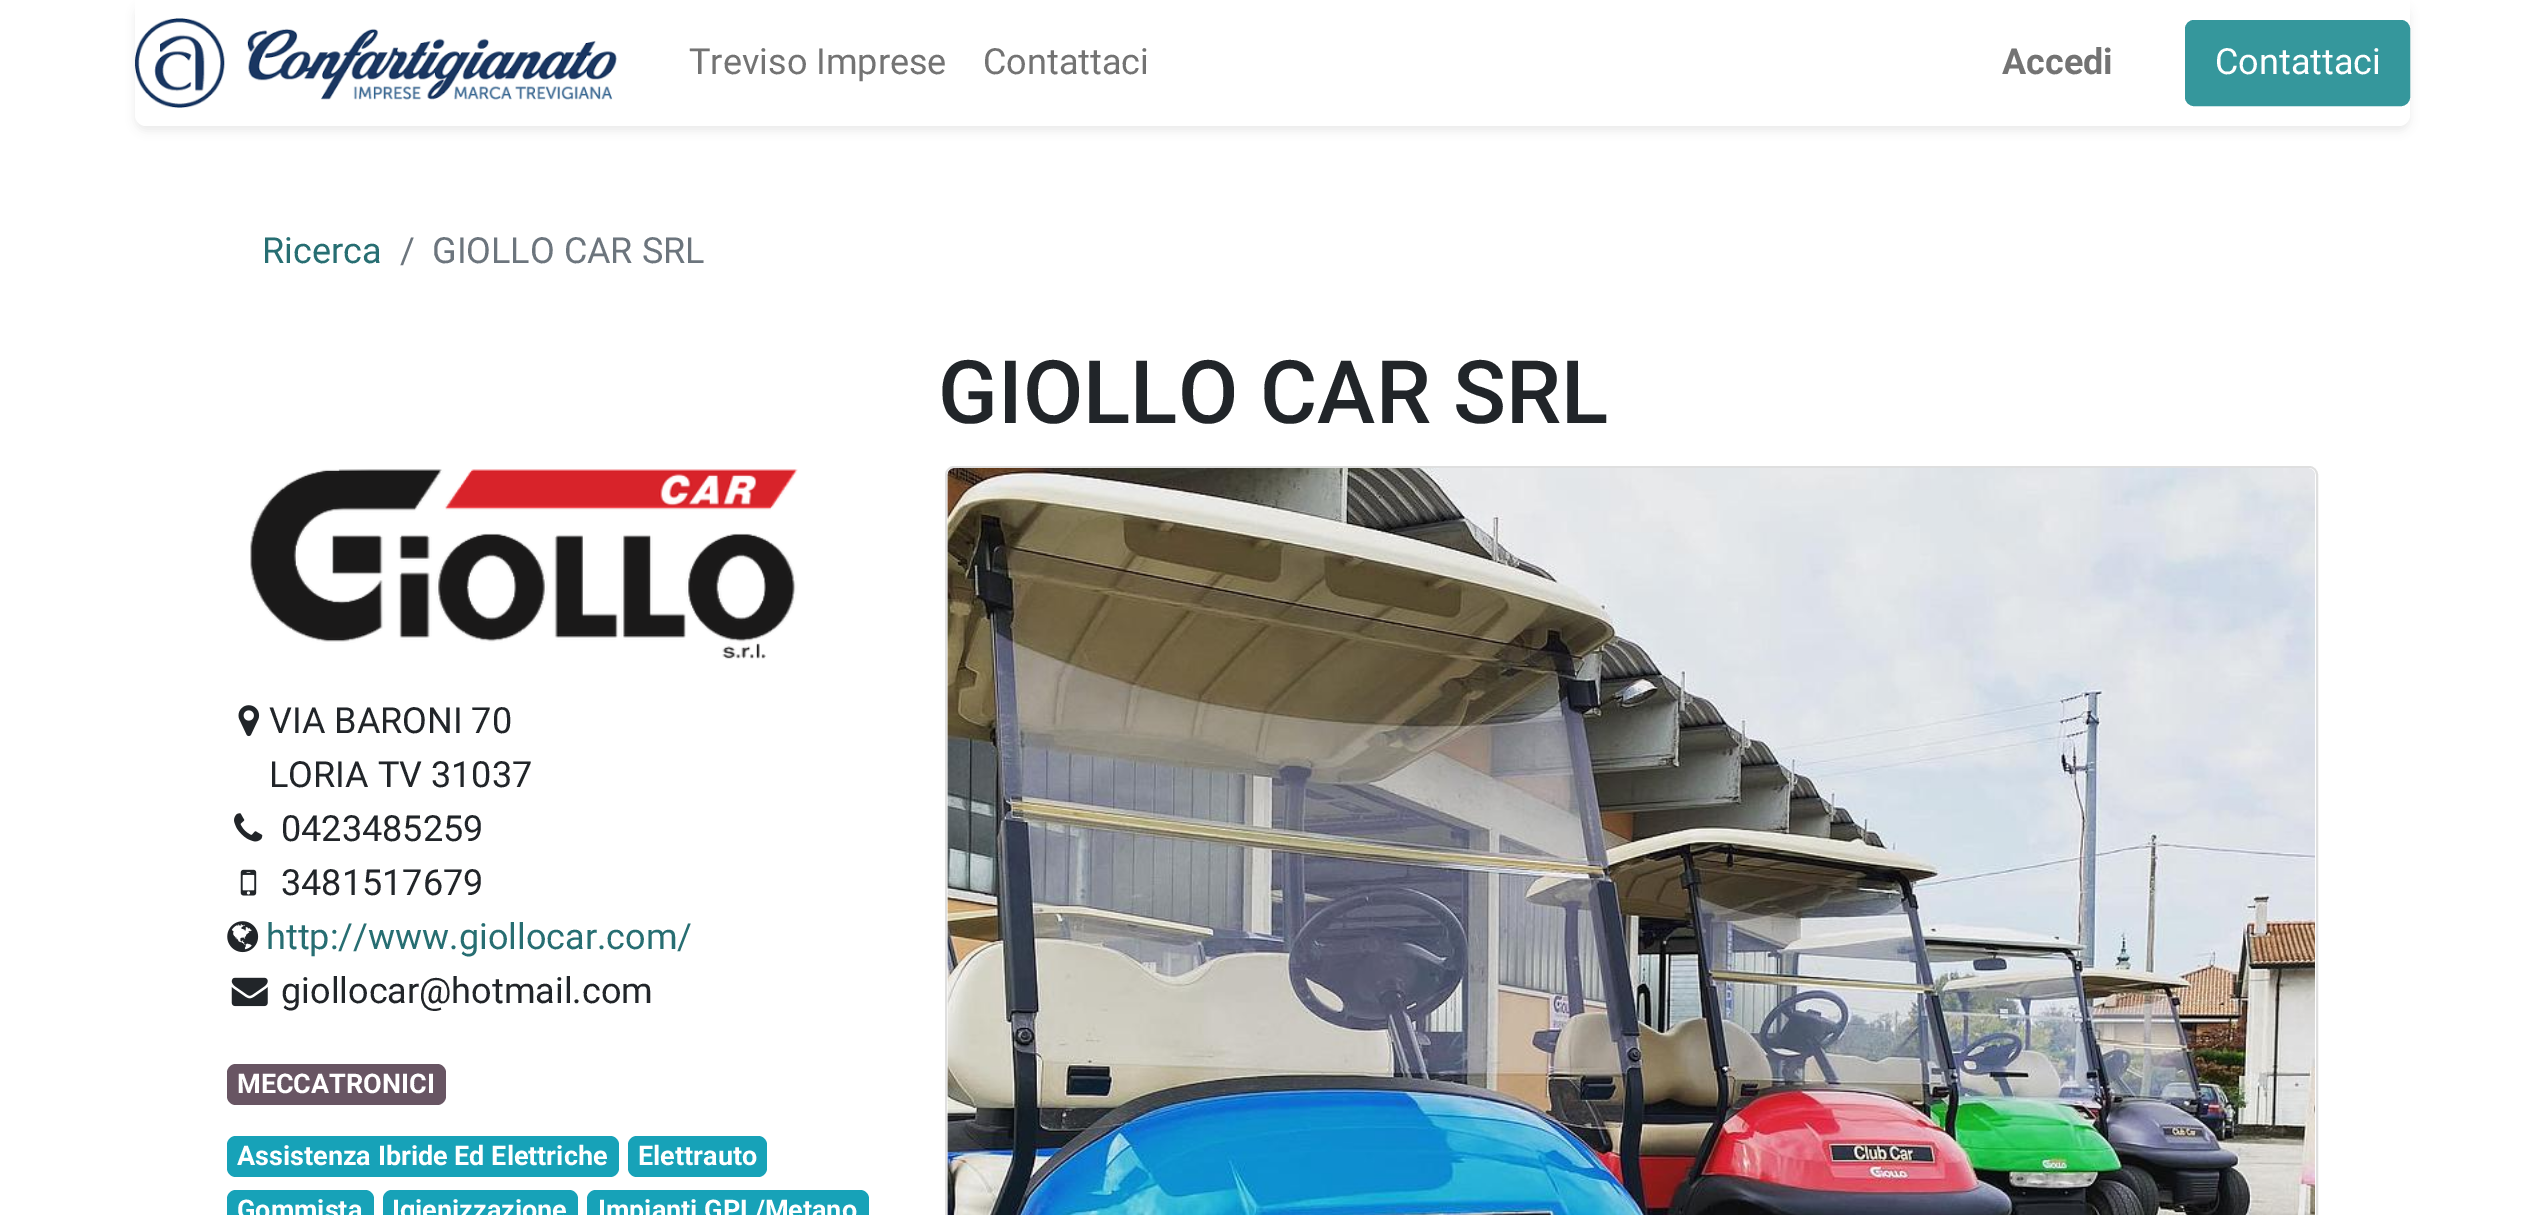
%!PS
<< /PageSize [2543 1215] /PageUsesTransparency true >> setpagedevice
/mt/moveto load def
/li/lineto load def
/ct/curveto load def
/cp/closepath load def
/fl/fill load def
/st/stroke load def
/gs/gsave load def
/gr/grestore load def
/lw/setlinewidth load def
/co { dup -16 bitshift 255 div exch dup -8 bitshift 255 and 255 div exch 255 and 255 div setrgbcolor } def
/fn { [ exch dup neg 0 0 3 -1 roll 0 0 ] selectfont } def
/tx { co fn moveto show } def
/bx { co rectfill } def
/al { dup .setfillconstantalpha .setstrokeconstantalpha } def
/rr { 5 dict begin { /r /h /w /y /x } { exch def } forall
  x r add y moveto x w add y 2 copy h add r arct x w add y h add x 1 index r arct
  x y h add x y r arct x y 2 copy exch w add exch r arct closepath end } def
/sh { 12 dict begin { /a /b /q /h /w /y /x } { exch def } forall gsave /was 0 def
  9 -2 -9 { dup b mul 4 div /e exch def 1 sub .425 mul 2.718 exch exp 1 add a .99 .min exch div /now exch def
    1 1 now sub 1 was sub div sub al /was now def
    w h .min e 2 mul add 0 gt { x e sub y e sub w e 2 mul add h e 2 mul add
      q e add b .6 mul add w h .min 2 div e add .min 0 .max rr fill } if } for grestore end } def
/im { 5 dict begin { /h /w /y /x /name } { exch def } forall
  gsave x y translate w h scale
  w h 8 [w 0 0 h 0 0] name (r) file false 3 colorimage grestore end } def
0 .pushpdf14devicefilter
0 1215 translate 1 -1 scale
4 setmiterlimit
0 0 2543 1215 16#FFFFFF bx
16#000000 co
135 5 2275 126 11 4.5 .07 sh
16#FFFFFF co
135 0 mt 2410 0 li 2410 115 li 2410 121 2405 126 2399 126 ct 146 126 li 140 126 135 121 135 115 ct cp fl
(media/1.raw) 135 18 482 90 im
16#35979C co
2186 21 223 84 8 rr gs fl gr
2 lw
st
(media/2.raw) 250 469 548 190 im
(media/3.raw) 238 705 22 32 im
(media/4.raw) 234 813 29 29 im
(media/5.raw) 240 869 17 27 im
(media/6.raw) 227 921 32 32 im
(media/7.raw) 231 977 37 30 im
16#685563 co
227 1064 219 41 9 rr fl
16#17A2B8 co
227 1136 392 41 9 rr fl
628 1136 139 41 9 rr fl
236 1190 mt 365 1190 li 370 1190 374 1194 374 1199 ct 374 1215 li 227 1215 li 227 1199 li 227 1194 231 1190 236 1190 ct cp fl
392 1190 mt 569 1190 li 574 1190 578 1194 578 1199 ct 578 1215 li 383 1215 li 383 1199 li 383 1194 387 1190 392 1190 ct cp fl
596 1190 mt 860 1190 li 865 1190 869 1194 869 1199 ct 869 1215 li 587 1215 li 587 1199 li 587 1194 591 1190 596 1190 ct cp fl
16#DFDFDF co
946 467 1371 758 8 rr st
(media/8.raw) 947 468 1368 747 im
(Treviso Imprese) 689 74 /Roboto-Regular 36 16#737373 tx
(Contattaci) 983 74 /Roboto-Regular 36 16#737373 tx
(Accedi) 2002 74 /Roboto-Bold 36 16#737373 tx
(Contattaci) 2215 74 /Roboto-Regular 36 16#FFFFFF tx
(Ricerca) 262 263 /Roboto-Regular 36 16#276E72 tx
(/) 400 263 /Roboto-Regular 36 16#6C757D tx
(GIOLLO CAR SRL) 432 263 /Roboto-Regular 36 16#6C757D tx
(GIOLLO CAR SRL) 938 423 /Roboto-Medium 87.75 16#212529 tx
(VIA BARONI 70) 269 733 /Roboto-Regular 36 16#212529 tx
(LORIA TV 31037) 269 787 /Roboto-Regular 36 16#212529 tx
(0423485259) 281 841 /Roboto-Regular 36 16#212529 tx
(3481517679) 281 895 /Roboto-Regular 36 16#212529 tx
(http://www.giollocar.com/) 266 949 /Roboto-Regular 36 16#276E72 tx
(giollocar@hotmail.com) 281 1003 /Roboto-Regular 36 16#212529 tx
(MECCATRONICI) 237 1093 /Roboto-Bold 27 16#FFFFFF tx
(Assistenza Ibride Ed Elettriche) 237 1165 /Roboto-Bold 27 16#FFFFFF tx
(Elettrauto) 638 1165 /Roboto-Bold 27 16#FFFFFF tx
(Gommista) 237 1219 /Roboto-Bold 27 16#FFFFFF tx
(Igienizzazione) 392 1219 /Roboto-Bold 27 16#FFFFFF tx
(Impianti GPL/Metano) 598 1219 /Roboto-Bold 27 16#FFFFFF tx
.poppdf14devicefilter showpage
